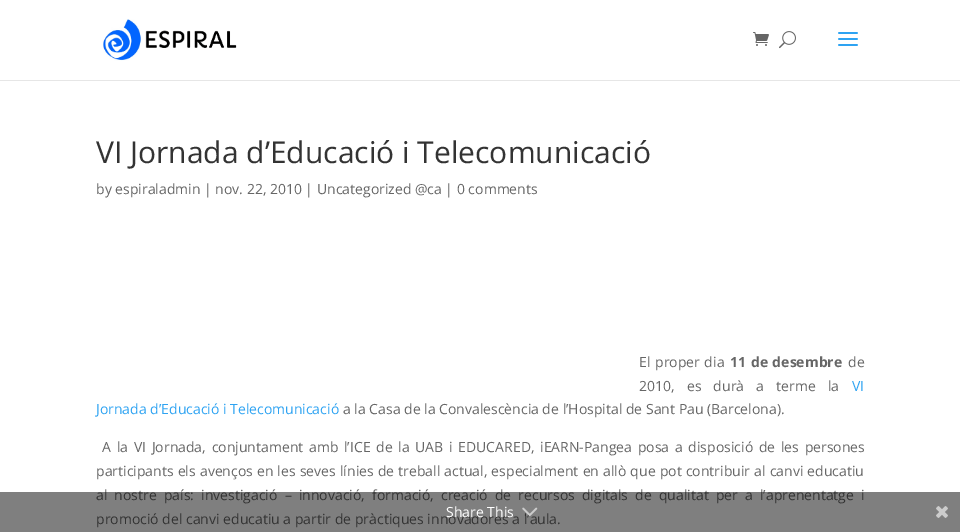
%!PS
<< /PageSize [960 532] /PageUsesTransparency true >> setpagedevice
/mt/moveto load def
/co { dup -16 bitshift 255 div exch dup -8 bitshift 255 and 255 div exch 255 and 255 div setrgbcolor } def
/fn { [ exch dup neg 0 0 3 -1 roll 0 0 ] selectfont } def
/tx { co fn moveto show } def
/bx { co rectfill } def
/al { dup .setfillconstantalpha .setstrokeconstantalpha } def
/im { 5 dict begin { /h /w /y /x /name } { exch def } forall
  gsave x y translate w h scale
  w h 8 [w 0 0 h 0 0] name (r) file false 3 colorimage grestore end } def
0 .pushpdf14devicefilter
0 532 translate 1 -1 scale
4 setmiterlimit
0 0 960 532 16#FFFFFF bx
0 80 960 1 16#E6E6E6 bx
(media/1.raw) 103 19 134 42 im
(media/2.raw) 753 32 16 14 im
(media/3.raw) 779 31 17 18 im
(media/4.raw) 838 32 20 14 im
(VI Jornada d’Educació i Telecomunicació) 96 163 /OpenSans-Regular 30 16#333333 tx
(by espiraladmin | nov. 22, 2010 | Uncategorized @ca | 0 comments) 96 194 /OpenSans-Regular 14 16#666666 tx
639 367 mt 1 0 32 (El proper dia) widthshow
/OpenSans-Bold 14 fn
730 367 mt 1 0 32 (11 de desembre) widthshow
(de) 848 367 /OpenSans-Regular 14 16#666666 tx
639 391 mt 8.5 0 32 (2010, es durà a terme la) widthshow
(VI) 852 391 /OpenSans-Regular 14 16#2EA3F2 tx
(Jornada d’Educació i Telecomunicació) 96 414 /OpenSans-Regular 14 16#2EA3F2 tx
(a la Casa de la Convalescència de l’Hospital de Sant Pau \(Barcelona\).) 343 414 /OpenSans-Regular 14 16#666666 tx
102 452 mt 2.1 0 32 (A la VI Jornada, conjuntament amb l’ICE de la UAB i EDUCARED, iEARN-Pangea posa a disposició de les persones) widthshow
96 476 mt .5 0 32 (participants els avenços en les seves línies de treball actual, especialment en allò que pot contribuir al canvi educatiu) widthshow
96 500 mt 3.5 0 32 (al nostre país: investigació – innovació, formació, creació de recursos digitals de qualitat per a l’aprenentatge i) widthshow
(promoció del canvi educatiu a partir de pràctiques innovadores a l’aula.) 96 524 /OpenSans-Regular 14 16#666666 tx
0.5 al
0 492 960 40 16#000000 bx
1 al
(Share This) 446 517 /OpenSans-Regular 14 16#FFFFFF tx
(media/5.raw) 522 507 16 9 im
(media/6.raw) 936 506 12 12 im
.poppdf14devicefilter showpage
